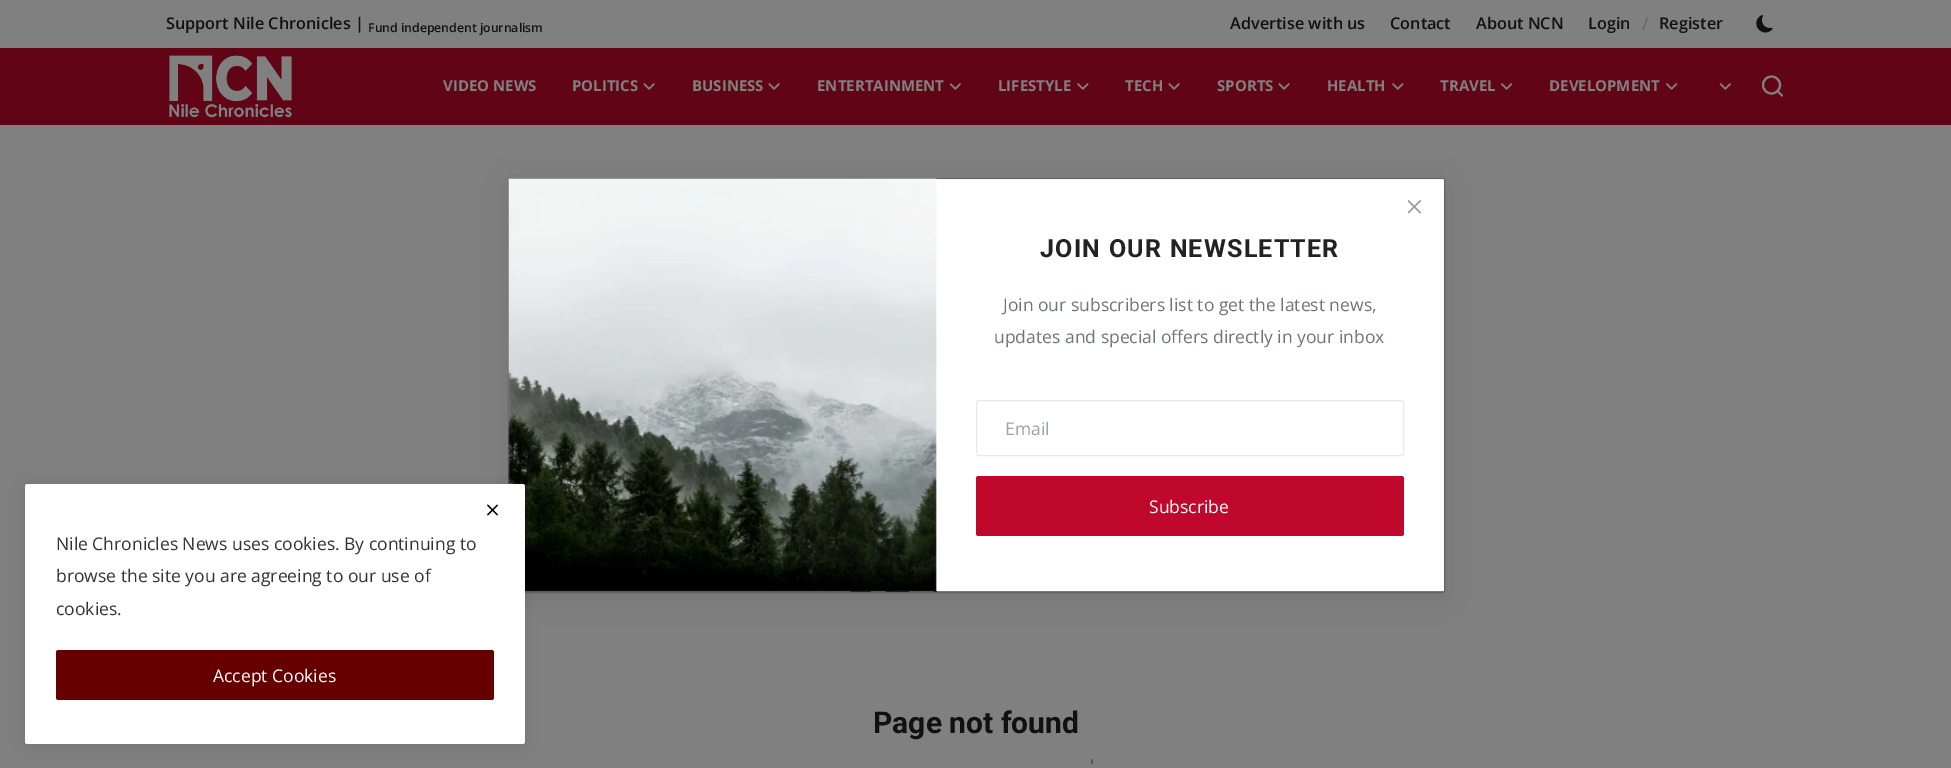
%!PS
<< /PageSize [1951 768] /PageUsesTransparency true >> setpagedevice
/mt/moveto load def
/li/lineto load def
/fl/fill load def
/st/stroke load def
/lw/setlinewidth load def
/co { dup -16 bitshift 255 div exch dup -8 bitshift 255 and 255 div exch 255 and 255 div setrgbcolor } def
/fn { [ exch dup neg 0 0 3 -1 roll 0 0 ] selectfont } def
/tx { co fn moveto show } def
/bx { co rectfill } def
/al { dup .setfillconstantalpha .setstrokeconstantalpha } def
/ci { newpath 0 360 arc closepath } def
/rr { 5 dict begin { /r /h /w /y /x } { exch def } forall
  x r add y moveto x w add y 2 copy h add r arct x w add y h add x 1 index r arct
  x y h add x y r arct x y 2 copy exch w add exch r arct closepath end } def
/sh { 12 dict begin { /a /b /q /h /w /y /x } { exch def } forall gsave /was 0 def
  9 -2 -9 { dup b mul 4 div /e exch def 1 sub .425 mul 2.718 exch exp 1 add a .99 .min exch div /now exch def
    1 1 now sub 1 was sub div sub al /was now def
    w h .min e 2 mul add 0 gt { x e sub y e sub w e 2 mul add h e 2 mul add
      q e add b .6 mul add w h .min 2 div e add .min 0 .max rr fill } if } for grestore end } def
/im { 5 dict begin { /h /w /y /x /name } { exch def } forall
  gsave x y translate w h scale
  w h 8 [w 0 0 h 0 0] name (r) file false 3 colorimage grestore end } def
0 .pushpdf14devicefilter
0 768 translate 1 -1 scale
4 setmiterlimit
0 0 1951 768 16#808080 bx
(media/1.raw) 1756 15 17 18 im
0 48 1951 77 16#600416 bx
(media/2.raw) 169 55 123 63 im
(media/3.raw) 643 83 12 7 im
(media/3.raw) 768 83 12 7 im
(media/4.raw) 949 83 12 7 im
(media/5.raw) 1077 83 12 7 im
(media/3.raw) 1168 83 12 7 im
(media/3.raw) 1278 83 12 7 im
(media/5.raw) 1392 83 12 7 im
(media/6.raw) 1501 83 12 7 im
(media/6.raw) 1666 83 12 7 im
(media/4.raw) 1719 83 12 7 im
16#808080 co
2.1 lw
1771.5 85 8.5 ci st
1 setlinecap
1 setlinejoin
1782 95.5 mt 1777.5 91 li st
16#000000 co
508 183 937 415 2.5 12.5 .1 sh
16#FFFFFF co
509 179 935 412 1 rr fl
0.18 al
16#000000 co
1 lw
0 setlinecap
0 setlinejoin
508.5 178.5 936 414 2 rr st
1 al
(media/7.raw) 508 178 429 414 im
(media/8.raw) 1408 200 13 14 im
16#E6E8EB co
976.5 400.5 427 55 2 rr st
16#BF082C co
976 476 428 60 2.5 rr fl
16#000000 co
25 484 500 260 2.5 7.5 .14 sh
16#FFFFFF co
25 484 500 260 2.5 rr fl
(media/9.raw) 487 504 11 12 im
16#660000 co
56 650 438 50 2.5 rr fl
(Support Nile Chronicles |) 166 29 /OpenSans-SemiBold 16.25 16#111111 tx
(Fund independent journalism) 368 32 /OpenSans-SemiBold 12.25 16#111111 tx
(Advertise with us) 1230 29 /OpenSans-SemiBold 16.25 16#111111 tx
(Contact) 1390 29 /OpenSans-SemiBold 16.25 16#111111 tx
(About NCN) 1476 29 /OpenSans-SemiBold 16.25 16#111111 tx
(Login) 1588 29 /OpenSans-SemiBold 16.25 16#111111 tx
(/) 1642 30 /OpenSans-Regular 17.5 16#666666 tx
(Register) 1659 29 /OpenSans-SemiBold 16.25 16#111111 tx
(VIDEO NEWS) 443 91 /OpenSans-Bold 15 16#808080 tx
(POLITICS) 572 91 /OpenSans-Bold 15 16#808080 tx
(BUSINESS) 692 91 /OpenSans-Bold 15 16#808080 tx
(ENTERTAINMENT) 817 91 /OpenSans-Bold 15 16#808080 tx
(LIFESTYLE) 998 91 /OpenSans-Bold 15 16#808080 tx
(TECH) 1125 91 /OpenSans-Bold 15 16#808080 tx
(SPORTS) 1217 91 /OpenSans-Bold 15 16#808080 tx
(HEALTH) 1327 91 /OpenSans-Bold 15 16#808080 tx
(TRAVEL) 1440 91 /OpenSans-Bold 15 16#808080 tx
(DEVELOPMENT) 1549 91 /OpenSans-Bold 15 16#808080 tx
/Roboto-Bold 25 fn
16#222222 co
1040 257 mt 1.25 0 (JOIN OUR NEWSLETTER) ashow
(Join our subscribers list to get the latest news,) 1003 311 /OpenSans-Regular 17.5 16#6C757D tx
(updates and special offers directly in your inbox) 994 343 /OpenSans-Regular 17.5 16#6C757D tx
(Email) 1005 435 /OpenSans-Regular 17.5 16#9AA2AA tx
(Subscribe) 1149 513 /OpenSans-Regular 17.5 16#FFFFFF tx
(Nile Chronicles News uses cookies. By continuing to) 56 550 /OpenSans-Regular 17.5 16#333333 tx
(browse the site you are agreeing to our use of) 56 582 /OpenSans-Regular 17.5 16#333333 tx
(cookies.) 56 615 /OpenSans-Regular 17.5 16#333333 tx
(Accept Cookies) 213 682 /OpenSans-Regular 17.5 16#FFFFFF tx
(Page not found) 873 733 /Roboto-Bold 30 16#111111 tx
(') 1090 772 /OpenSans-Regular 17.5 16#363B3F tx
.poppdf14devicefilter showpage
